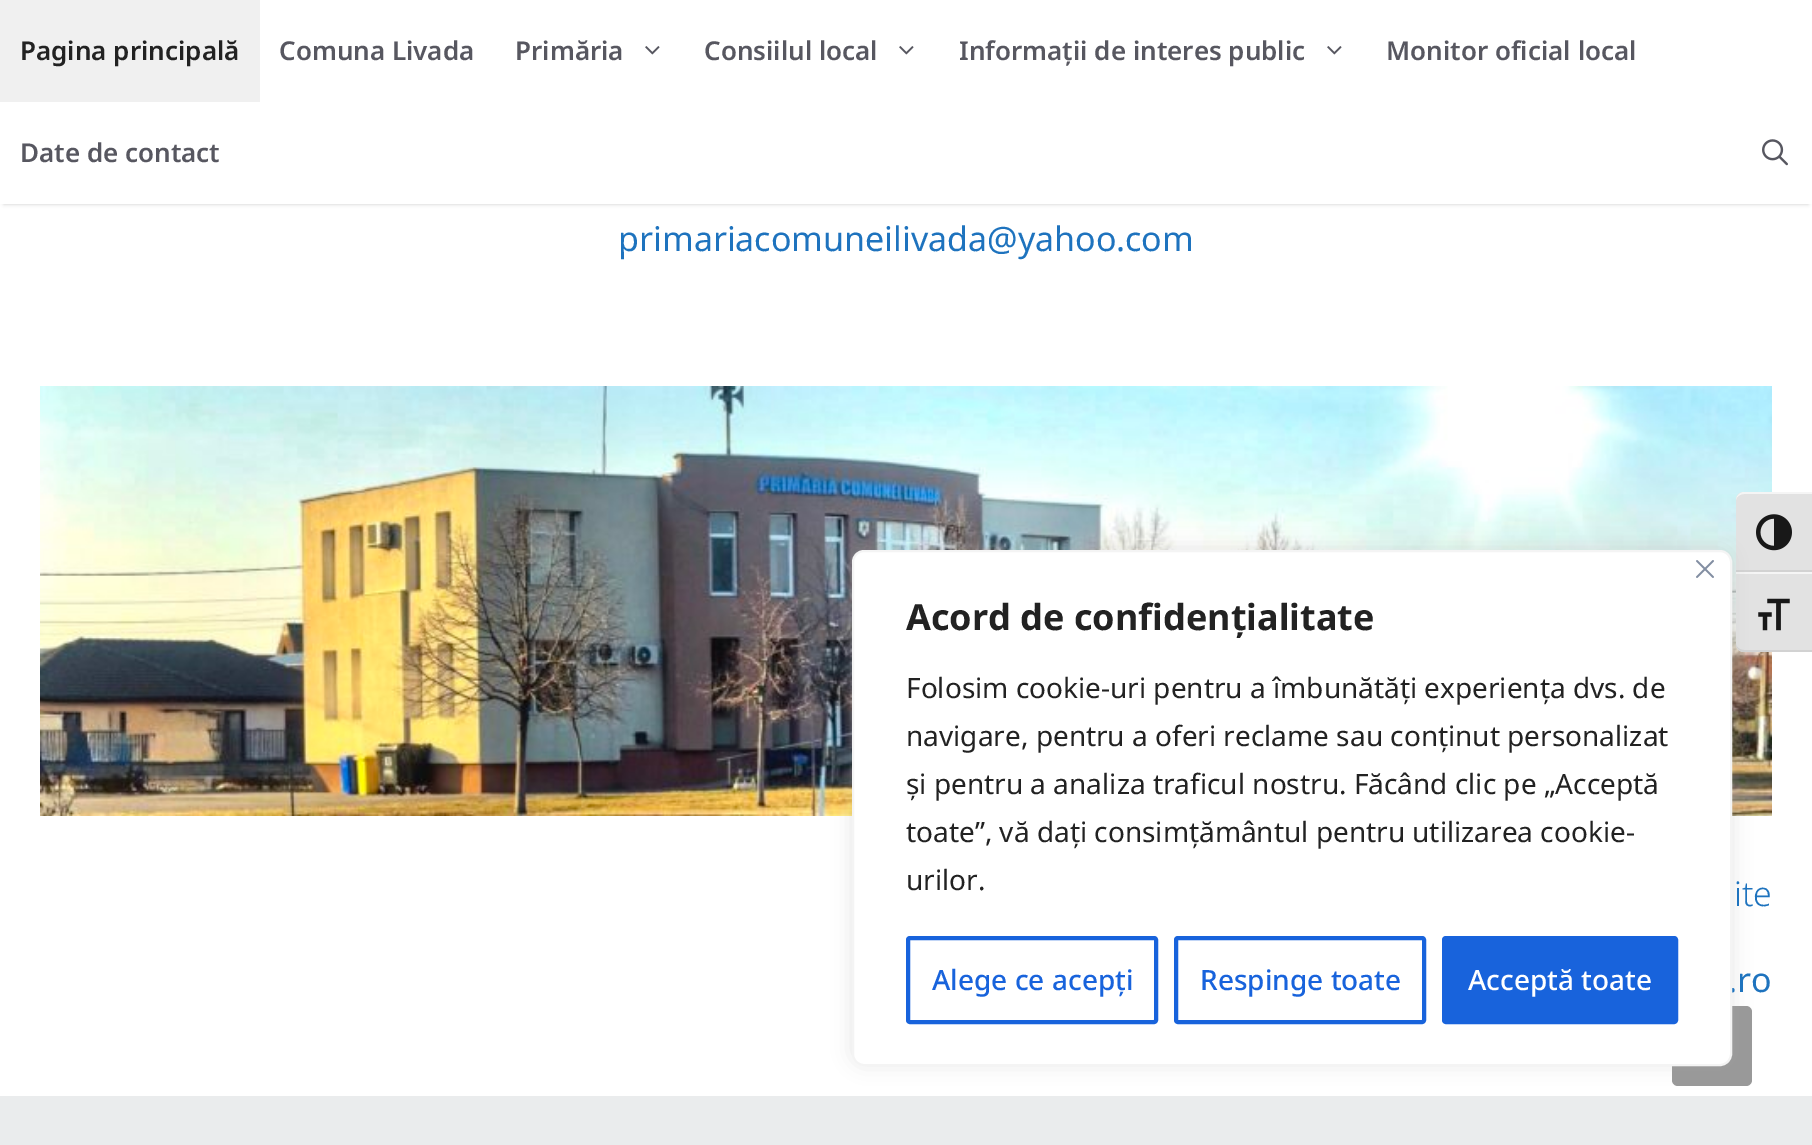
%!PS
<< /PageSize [1812 1145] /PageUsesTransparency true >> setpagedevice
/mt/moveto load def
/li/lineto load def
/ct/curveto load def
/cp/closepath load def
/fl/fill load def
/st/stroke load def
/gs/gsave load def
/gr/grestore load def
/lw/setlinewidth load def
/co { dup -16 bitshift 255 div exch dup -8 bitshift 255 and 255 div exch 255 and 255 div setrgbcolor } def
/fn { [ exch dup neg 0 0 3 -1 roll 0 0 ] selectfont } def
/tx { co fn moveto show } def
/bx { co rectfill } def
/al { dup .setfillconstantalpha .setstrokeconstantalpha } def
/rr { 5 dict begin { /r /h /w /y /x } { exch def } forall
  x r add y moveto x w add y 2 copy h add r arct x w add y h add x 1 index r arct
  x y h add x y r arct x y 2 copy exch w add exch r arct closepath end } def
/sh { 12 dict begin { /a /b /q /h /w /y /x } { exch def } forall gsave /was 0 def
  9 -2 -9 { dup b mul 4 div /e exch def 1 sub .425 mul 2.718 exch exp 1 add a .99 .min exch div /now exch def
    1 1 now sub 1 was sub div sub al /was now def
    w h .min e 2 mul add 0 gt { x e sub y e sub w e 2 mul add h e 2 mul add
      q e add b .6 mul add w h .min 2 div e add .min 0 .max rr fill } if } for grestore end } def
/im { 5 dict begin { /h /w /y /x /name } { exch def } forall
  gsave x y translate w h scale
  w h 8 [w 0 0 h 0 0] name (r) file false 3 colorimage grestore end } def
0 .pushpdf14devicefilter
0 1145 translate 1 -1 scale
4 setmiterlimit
0 0 1812 1145 16#EAECED bx
0 204 1812 892 16#FFFFFF bx
16#000000 co
4 8 1804 196 0 2 .2 sh
0 0 1812 204 16#FFFFFF bx
0 0 260 102 16#F0F0F0 bx
(media/1.raw) 645 46 15 9 im
(media/1.raw) 899 46 15 9 im
(media/1.raw) 1327 46 15 9 im
(media/2.raw) 1762 139 26 27 im
(media/3.raw) 40 386 1732 430 im
16#E2E2E2 co
1744 492 mt 1812 492 li 1812 572 li 1736 572 li 1736 500 li 1736 495.5 1739.5 492 1744 492 ct cp fl
16#F5F5F5 co
1744 494 mt 1812 494 li 1812 492 li 1744 492 li 1740 492 1736 496 1736 500 ct 1736 497 1740 494 1744 494 ct cp fl
1736 570 76 2 16#D2D2D2 bx
(media/4.raw) 1756 514 36 37 im
16#E2E2E2 co
1736 572 mt 1812 572 li 1812 652 li 1744 652 li 1739.5 652 1736 648.5 1736 644 ct cp fl
1736 572 76 2 16#F5F5F5 bx
16#D2D2D2 co
1812 652 mt 1812 650 li 1744 650 li 1740 650 1736 647 1736 644 ct 1736 648 1740 652 1744 652 ct cp fl
(media/5.raw) 1758 598 32 33 im
16#999999 co
1672 1006 80 80 6 rr fl
16#ACABAB co
852 548 880 516 12 10 .3 sh
(Pagina principală) 20 60 /NotoSans-SemiBold 26 16#222222 tx
(Comuna Livada) 279 60 /NotoSans-SemiBold 26 16#575760 tx
(Primăria) 515 60 /NotoSans-SemiBold 26 16#575760 tx
(Consiilul local) 704 60 /NotoSans-SemiBold 26 16#575760 tx
(Informații de interes public) 959 60 /NotoSans-SemiBold 26 16#575760 tx
(Monitor oficial local) 1386 60 /NotoSans-SemiBold 26 16#575760 tx
(Date de contact) 20 162 /NotoSans-SemiBold 26 16#575760 tx
(primariacomuneilivada@yahoo.com) 618 251 /NotoSans-Regular 34 16#1E73BE tx
(ite) 1734 906 /NotoSans-Light 34 16#1E73BE tx
(.ro) 1728 992 /NotoSans-Regular 34 16#1E73BE tx
16#FFFFFF co
853 551 878 514 11 rr gs fl gr
16#F4F4F4 co
2 lw
st
(media/6.raw) 1696 560 18 18 im
(Acord de confidențialitate) 906 630 /NotoSans-Bold 36 16#222222 tx
(Folosim cookie-uri pentru a îmbunătăți experiența dvs. de) 906 698 /NotoSans-Regular 28 16#222222 tx
(navigare, pentru a oferi reclame sau conținut personalizat) 906 746 /NotoSans-Regular 28 16#222222 tx
(și pentru a analiza traficul nostru. Făcând clic pe „Acceptă) 906 794 /NotoSans-Regular 28 16#222222 tx
(toate”, vă dați consimțământul pentru utilizarea cookie-) 906 842 /NotoSans-Regular 28 16#222222 tx
(urilor.) 906 890 /NotoSans-Regular 28 16#222222 tx
16#1863DC co
4 lw
908 938 248 84 2 rr st
(Alege ce acepți) 932 990 /NotoSans-Medium 28 16#1863DC tx
1176 938 248 84 2 rr st
(Respinge toate) 1200 990 /NotoSans-Medium 28 16#1863DC tx
1444 938 232 84 2 rr gs fl gr
st
(Acceptă toate) 1468 990 /NotoSans-Medium 28 16#FFFFFF tx
.poppdf14devicefilter showpage
